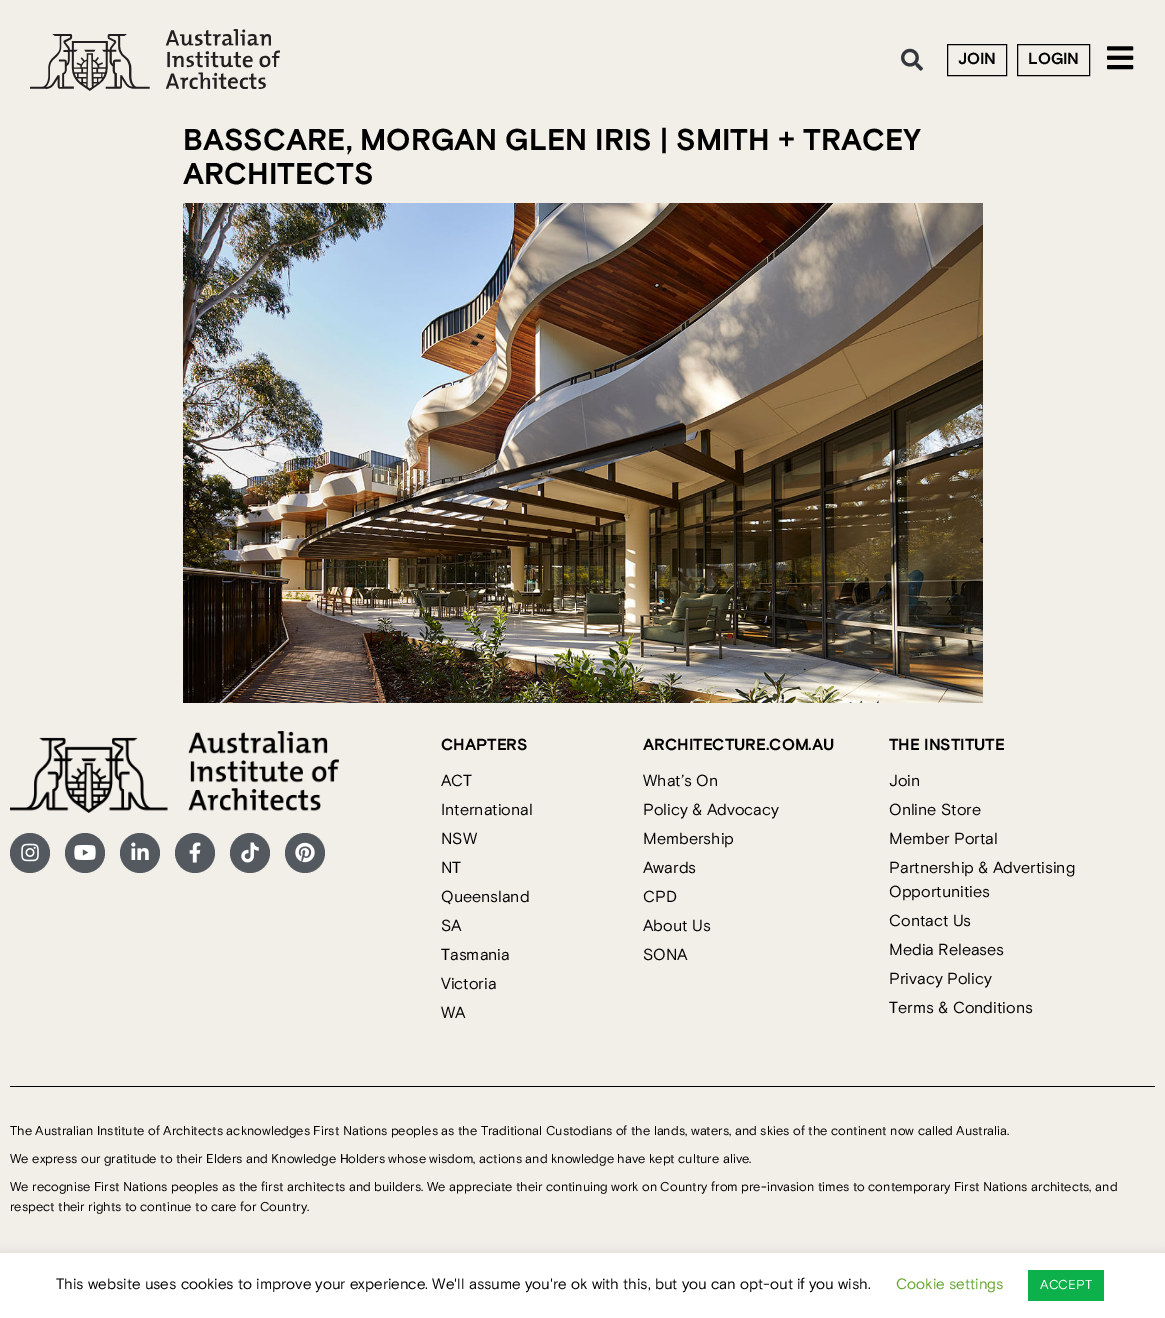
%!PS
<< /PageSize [1165 1318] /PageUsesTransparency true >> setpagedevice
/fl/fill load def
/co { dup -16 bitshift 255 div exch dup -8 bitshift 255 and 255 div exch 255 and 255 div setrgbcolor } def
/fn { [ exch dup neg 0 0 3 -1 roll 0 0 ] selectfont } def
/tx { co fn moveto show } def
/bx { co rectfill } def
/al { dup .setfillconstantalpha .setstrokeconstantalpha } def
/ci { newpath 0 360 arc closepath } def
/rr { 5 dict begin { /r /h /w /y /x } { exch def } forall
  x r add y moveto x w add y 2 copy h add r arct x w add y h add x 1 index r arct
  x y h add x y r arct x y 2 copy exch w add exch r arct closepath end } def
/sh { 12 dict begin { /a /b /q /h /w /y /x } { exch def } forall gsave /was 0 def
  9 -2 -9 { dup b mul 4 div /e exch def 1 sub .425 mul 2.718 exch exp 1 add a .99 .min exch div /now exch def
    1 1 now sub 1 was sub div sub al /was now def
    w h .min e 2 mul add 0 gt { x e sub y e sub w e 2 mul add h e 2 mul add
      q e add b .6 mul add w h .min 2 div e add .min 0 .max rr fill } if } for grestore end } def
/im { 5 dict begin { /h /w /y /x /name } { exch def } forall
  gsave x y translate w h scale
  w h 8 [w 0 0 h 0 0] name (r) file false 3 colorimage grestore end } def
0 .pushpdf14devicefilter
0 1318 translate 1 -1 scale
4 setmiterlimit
0 0 1165 1318 16#F2EEE8 bx
(media/1.raw) 30 29 250 62 im
(media/2.raw) 901 48 22 23 im
16#000000 co
947.5 44.5 59 31 rectstroke
1017.5 44.5 72 31 rectstroke
(media/3.raw) 1107 46 27 24 im
(media/4.raw) 183 203 800 500 im
(media/5.raw) 10 731 329 82 im
16#54595F co
30 853 20 ci fl
(media/6.raw) 21 843 18 19 im
85 853 20 ci fl
(media/7.raw) 74 845 22 15 im
140 853 20 ci fl
(media/8.raw) 131 842 18 18 im
195 853 20 ci fl
(media/9.raw) 189 842 12 21 im
250 853 20 ci fl
(media/10.raw) 241 842 18 21 im
305 853 20 ci fl
(media/11.raw) 295 842 20 21 im
10 1086 1145 1 16#000000 bx
16#ACABAB co
0 1252 1165 65 0 5 .3 sh
0 1253 1165 65 16#FFFFFF bx
1028 1270 76 31 16#0DB14B bx
(JOIN) 958 64 /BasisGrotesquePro-Bold 16 16#000000 tx
(LOGIN) 1028 64 /BasisGrotesquePro-Bold 16 16#000000 tx
(BASSCARE, MORGAN GLEN IRIS | SMITH + TRACEY) 183 150 /BasisGrotesquePro-Bold 30 16#000000 tx
(ARCHITECTS) 183 184 /BasisGrotesquePro-Bold 30 16#000000 tx
(CHAPTERS) 441 750 /BasisGrotesquePro-Bold 16 16#000000 tx
(ACT) 441 786 /BasisGrotesquePro-Regular 16 16#000000 tx
(International) 441 815 /BasisGrotesquePro-Regular 16 16#000000 tx
(NSW) 441 844 /BasisGrotesquePro-Regular 16 16#000000 tx
(NT) 441 873 /BasisGrotesquePro-Regular 16 16#000000 tx
(Queensland) 441 902 /BasisGrotesquePro-Regular 16 16#000000 tx
(SA) 441 931 /BasisGrotesquePro-Regular 16 16#000000 tx
(Tasmania) 441 960 /BasisGrotesquePro-Regular 16 16#000000 tx
(Victoria) 441 989 /BasisGrotesquePro-Regular 16 16#000000 tx
(WA) 441 1018 /BasisGrotesquePro-Regular 16 16#000000 tx
(ARCHITECTURE.COM.AU) 643 750 /BasisGrotesquePro-Bold 16 16#000000 tx
(What’s On) 643 786 /BasisGrotesquePro-Regular 16 16#000000 tx
(Policy & Advocacy) 643 815 /BasisGrotesquePro-Regular 16 16#000000 tx
(Membership) 643 844 /BasisGrotesquePro-Regular 16 16#000000 tx
(Awards) 643 873 /BasisGrotesquePro-Regular 16 16#000000 tx
(CPD) 643 902 /BasisGrotesquePro-Regular 16 16#000000 tx
(About Us) 643 931 /BasisGrotesquePro-Regular 16 16#000000 tx
(SONA) 643 960 /BasisGrotesquePro-Regular 16 16#000000 tx
(THE INSTITUTE) 889 750 /BasisGrotesquePro-Bold 16 16#000000 tx
(Join) 889 786 /BasisGrotesquePro-Regular 16 16#000000 tx
(Online Store) 889 815 /BasisGrotesquePro-Regular 16 16#000000 tx
(Member Portal) 889 844 /BasisGrotesquePro-Regular 16 16#000000 tx
(Partnership & Advertising) 889 873 /BasisGrotesquePro-Regular 16 16#000000 tx
(Opportunities) 889 897 /BasisGrotesquePro-Regular 16 16#000000 tx
(Contact Us) 889 926 /BasisGrotesquePro-Regular 16 16#000000 tx
(Media Releases) 889 955 /BasisGrotesquePro-Regular 16 16#000000 tx
(Privacy Policy) 889 984 /BasisGrotesquePro-Regular 16 16#000000 tx
(Terms & Conditions) 889 1013 /BasisGrotesquePro-Regular 16 16#000000 tx
(The Australian Institute of Architects acknowledges First Nations peoples as the Traditional Custodians of the lands, waters, and skies of the continent now called Australia.) 10 1135 /BasisGrotesquePro-Regular 12.8 16#000000 tx
(We express our gratitude to their Elders and Knowledge Holders whose wisdom, actions and knowledge have kept culture alive.) 10 1163 /BasisGrotesquePro-Regular 12.8 16#000000 tx
(We recognise First Nations peoples as the first architects and builders. We appreciate their continuing work on Country from pre-invasion times to contemporary First Nations architects, and) 10 1191 /BasisGrotesquePro-Regular 12.8 16#000000 tx
(respect their rights to continue to care for Country.) 10 1211 /BasisGrotesquePro-Regular 12.8 16#000000 tx
(This website uses cookies to improve your experience. We'll assume you're ok with this, but you can opt-out if you wish.) 56 1289 /BasisGrotesquePro-Regular 15 16#000000 tx
(Cookie settings) 896 1289 /BasisGrotesquePro-Regular 15 16#62A329 tx
(ACCEPT) 1040 1289 /BasisGrotesquePro-Regular 13 16#FFFFFF tx
.poppdf14devicefilter showpage
